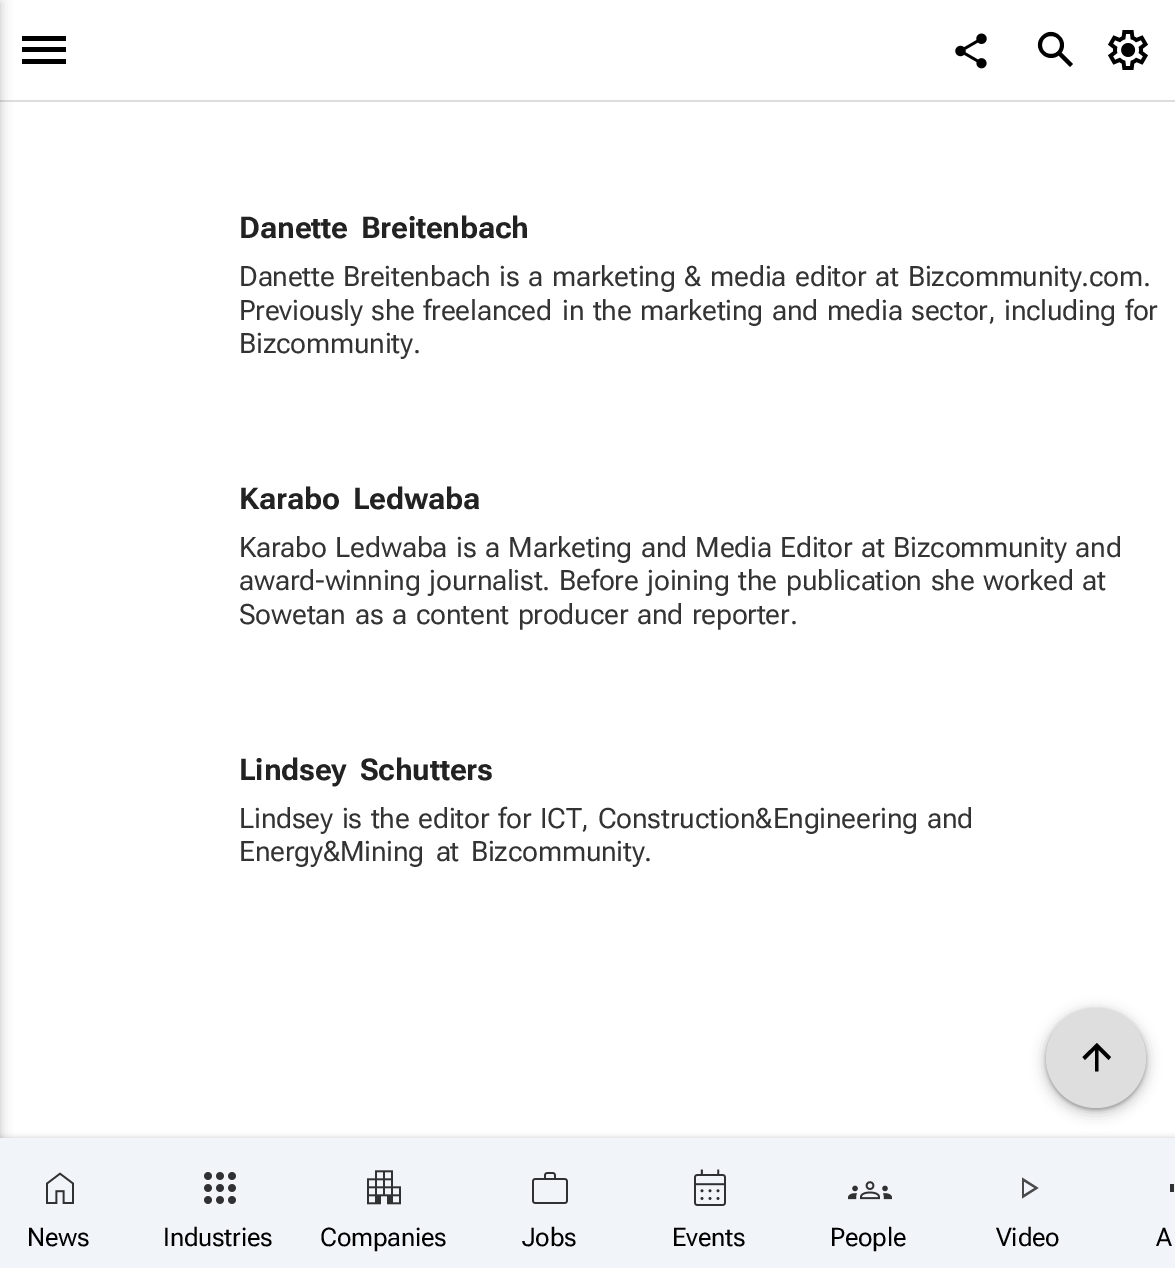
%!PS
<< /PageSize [1175 1268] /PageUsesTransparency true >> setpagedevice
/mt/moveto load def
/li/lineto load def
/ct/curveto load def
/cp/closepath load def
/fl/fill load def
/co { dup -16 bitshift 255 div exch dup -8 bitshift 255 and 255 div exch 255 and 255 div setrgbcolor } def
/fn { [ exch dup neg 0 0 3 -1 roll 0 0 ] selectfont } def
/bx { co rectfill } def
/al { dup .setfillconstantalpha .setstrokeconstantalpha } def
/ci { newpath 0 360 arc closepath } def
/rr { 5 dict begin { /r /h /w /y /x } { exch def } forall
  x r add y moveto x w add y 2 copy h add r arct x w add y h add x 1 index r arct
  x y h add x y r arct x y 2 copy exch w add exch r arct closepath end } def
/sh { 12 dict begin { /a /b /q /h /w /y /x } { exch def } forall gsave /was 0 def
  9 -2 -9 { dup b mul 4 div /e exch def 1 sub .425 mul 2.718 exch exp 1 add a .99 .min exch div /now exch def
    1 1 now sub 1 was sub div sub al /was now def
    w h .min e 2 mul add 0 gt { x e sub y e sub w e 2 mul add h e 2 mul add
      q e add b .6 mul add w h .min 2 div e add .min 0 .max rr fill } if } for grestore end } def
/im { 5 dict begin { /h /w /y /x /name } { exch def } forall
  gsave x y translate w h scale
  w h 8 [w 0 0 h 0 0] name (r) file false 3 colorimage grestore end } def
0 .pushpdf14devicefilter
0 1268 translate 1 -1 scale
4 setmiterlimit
0 0 1175 1268 16#FFFFFF bx
0 100 1175 2 16#DDDDDD bx
16#202124 co
-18 2 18 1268 0 6 .28 sh
16#000000 co
22 64 mt 22 59 li 66 59 li 66 64 li cp 22 52 mt 22 47 li 66 47 li 66 52 li cp 22 41 mt 22 36 li 66 36 li 66 41 li cp fl
(media/1.raw) 955 33 32 36 im
1073 64 mt 1061.5 52.5 li 1070.5 40 1053 24.5 1042 36 ct 1030.5 47 1046 64.5 1058.5 55.5 ct 1070 67 li cp 1042 45 mt 1042 33 1060 33 1060 45 ct 1060 57 1042 57 1042 45 ct cp fl
(media/2.raw) 1108 30 40 40 im
1046 1010 100 100 50 2 .3 sh
1042 1008 108 108 54 6 .15 sh
16#DEDEDE co
1096 1058 50 ci fl
16#000000 co
1095 1050 mt 1085 1060 li 1082.5 1057 li 1097 1043 li 1111 1057 li 1108.5 1060 li 1098.5 1050 li 1098.5 1071.5 li 1095 1071.5 li cp fl
0 1138 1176 130 0 3 .2 sh
0 1138 1175 130 16#F1F4F9 bx
(media/3.raw) 46 1172 28 32 im
(media/4.raw) 204 1172 32 32 im
(media/5.raw) 367 1170 34 35 im
(media/6.raw) 532 1172 36 32 im
(media/7.raw) 694 1169 32 37 im
(media/8.raw) 848 1181 44 19 im
16#494A4B co
1022 1198.5 mt 1022 1177.5 li 1038.5 1188 li cp 1024 1188 mt cp 1024 1194.5 mt 1034.5 1188 li 1024 1181.5 li cp fl
1170 1184 4 8 16#303132 bx
/RobotoFlex-Bold 30 fn
16#222222 co
239 238 mt 6 0 32 -.2 0 (Danette Breitenbach) awidthshow
/RobotoFlex-Regular 28 fn
16#333333 co
239 286 mt 2.25 0 32 -.2 0 (Danette Breitenbach is a marketing & media editor at Bizcommunity.com.) awidthshow
239 320 mt 2 0 32 -.2 0 (Previously she freelanced) awidthshow
562 320 mt 2 0 32 -.2 0 (in the marketing and media sector, including for) awidthshow
239 353 mt -.2 0 (Bizcommunity.) ashow
/RobotoFlex-Bold 30 fn
16#222222 co
239 509 mt 6 0 32 -.2 0 (Karabo Ledwaba) awidthshow
/RobotoFlex-Regular 28 fn
16#333333 co
239 557 mt 2 0 32 -.2 0 (Karabo Ledwaba is a Marketing and Media Editor at Bizcommunity and) awidthshow
239 590 mt 2.25 0 32 -.2 0 (award-winning journalist. Before joining the publication she worked at) awidthshow
239 624 mt 2.25 0 32 -.2 0 (Sowetan as a content producer and reporter.) awidthshow
/RobotoFlex-Bold 30 fn
16#222222 co
239 780 mt 6 0 32 -.2 0 (Lindsey Schutters) awidthshow
/RobotoFlex-Regular 28 fn
16#333333 co
239 828 mt 2.25 0 32 -.2 0 (Lindsey is the editor for ICT, Construction&Engineering and) awidthshow
239 861 mt 5 0 32 -.2 0 (Energy&Mining at Bizcommunity.) awidthshow
/RobotoFlex-Regular 25.5 fn
16#000000 co
27 1246 mt -.2 0 (News) ashow
163 1246 mt -.2 0 (Industries) ashow
320 1246 mt -.2 0 (Companies) ashow
522 1246 mt -.2 0 (Jobs) ashow
672 1246 mt -.2 0 (Events) ashow
830 1246 mt -.2 0 (People) ashow
996 1246 mt -.2 0 (Video) ashow
1156 1246 mt -.2 0 (A) ashow
.poppdf14devicefilter showpage
